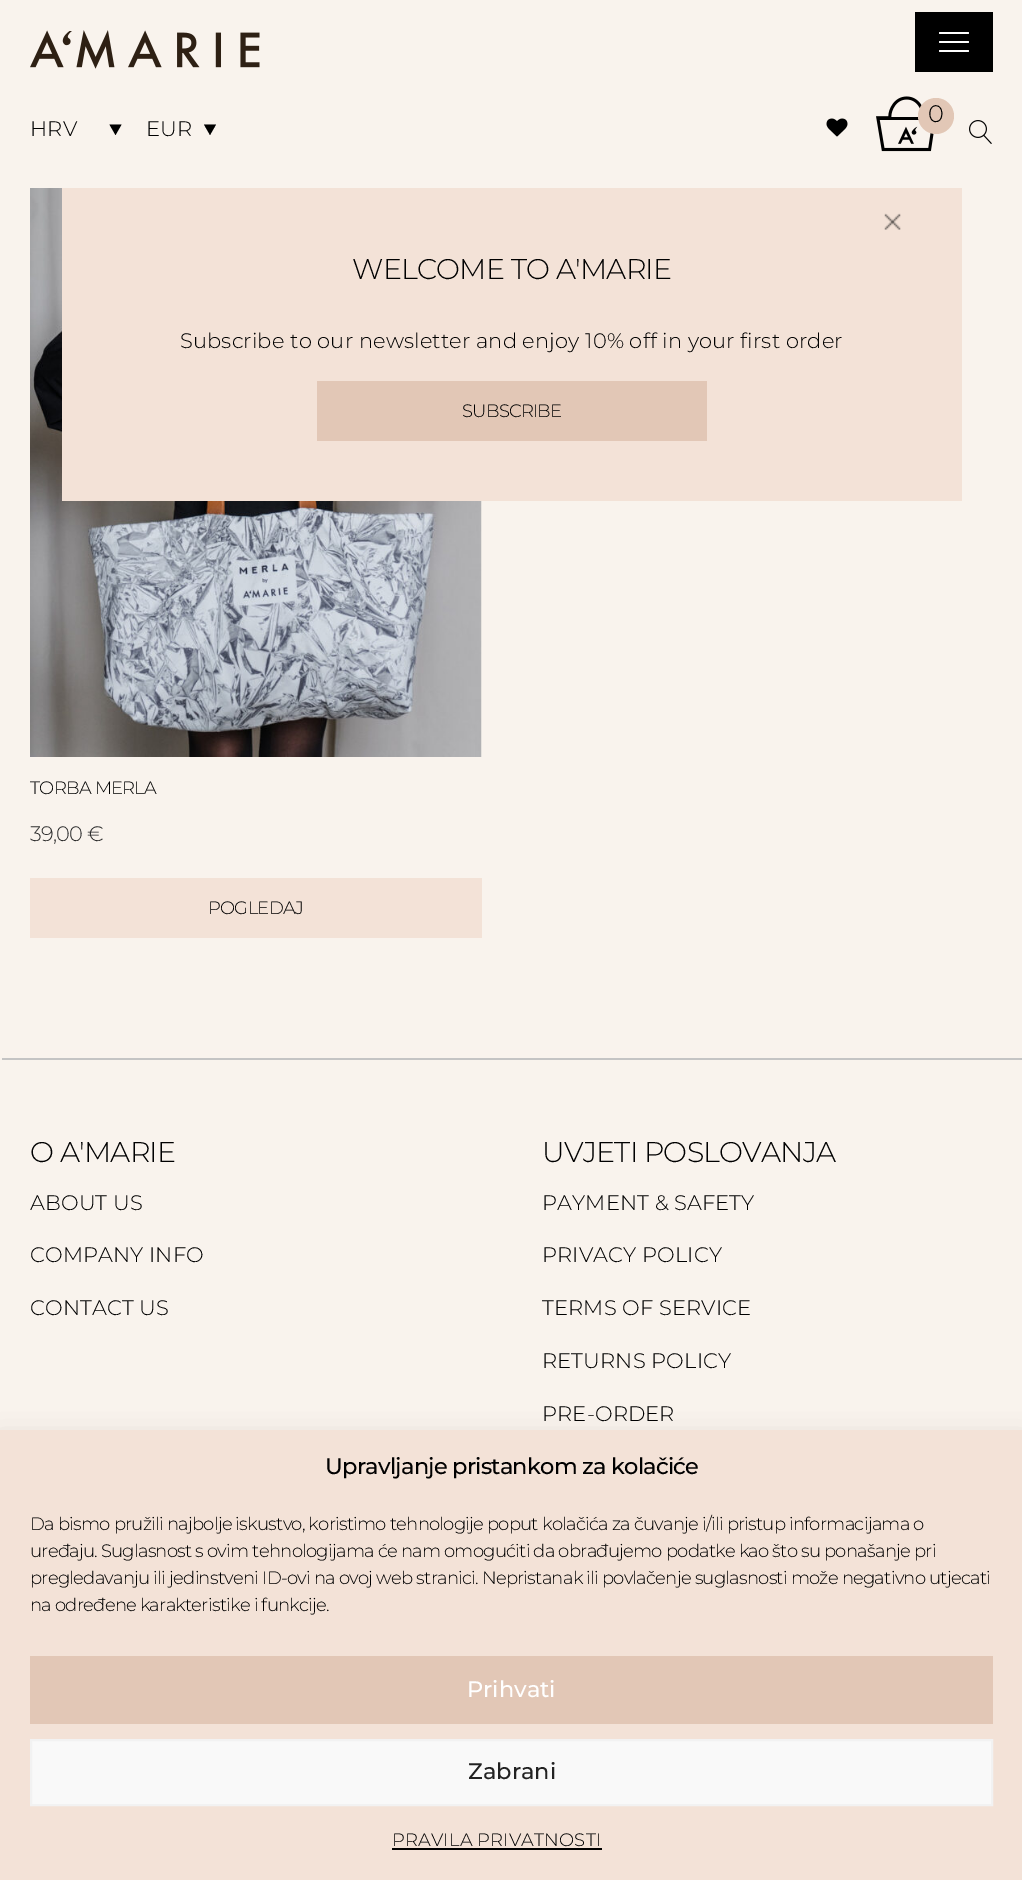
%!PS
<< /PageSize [1022 1880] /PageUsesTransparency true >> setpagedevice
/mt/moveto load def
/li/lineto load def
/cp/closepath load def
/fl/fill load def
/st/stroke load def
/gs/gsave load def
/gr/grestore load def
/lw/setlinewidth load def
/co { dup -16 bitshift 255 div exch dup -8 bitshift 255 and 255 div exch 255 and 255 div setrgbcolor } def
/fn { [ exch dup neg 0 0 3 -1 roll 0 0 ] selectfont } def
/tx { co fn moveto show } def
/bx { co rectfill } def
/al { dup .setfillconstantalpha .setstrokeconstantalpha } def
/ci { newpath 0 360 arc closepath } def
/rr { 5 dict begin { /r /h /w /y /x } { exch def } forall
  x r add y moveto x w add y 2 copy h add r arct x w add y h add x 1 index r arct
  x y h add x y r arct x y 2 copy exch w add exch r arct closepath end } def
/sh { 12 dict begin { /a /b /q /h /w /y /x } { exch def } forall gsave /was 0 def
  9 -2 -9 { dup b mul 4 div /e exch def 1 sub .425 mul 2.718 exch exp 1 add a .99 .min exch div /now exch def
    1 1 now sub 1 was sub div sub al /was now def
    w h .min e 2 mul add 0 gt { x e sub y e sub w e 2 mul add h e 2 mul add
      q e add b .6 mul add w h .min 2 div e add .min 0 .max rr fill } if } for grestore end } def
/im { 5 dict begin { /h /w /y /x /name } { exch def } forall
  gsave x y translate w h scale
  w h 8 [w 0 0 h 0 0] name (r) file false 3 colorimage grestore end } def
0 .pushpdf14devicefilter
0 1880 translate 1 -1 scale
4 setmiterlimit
0 0 1022 1880 16#F9F3ED bx
915 12 78 60 16#000000 bx
16#FFFFFF co
939 41 30 2 1 rr fl
939 32 30 2 1 rr fl
939 50 30 2 1 rr fl
(media/1.raw) 30 30 230 39 im
(media/2.raw) 876 96 58 56 im
16#E2C7B6 co
936 116 18 ci fl
(media/3.raw) 826 118 22 19 im
(media/4.raw) 969 120 23 24 im
16#000000 co
109.5 124.5 mt 121.5 124.5 li 115.5 135 li cp fl
204 124.5 mt 216 124.5 li 210 135 li cp fl
(media/6.raw) 30 188 452 569 im
62 188 900 313 16#F3E2D7 bx
(media/5.raw) 884 213 17 17 im
317 381 390 60 16#E2C7B6 bx
30 878 452 60 16#F3E2D7 bx
0 1058 1022 2 16#C4C4C4 bx
0 1058 2 2 16#F9F3ED bx
16#000000 co
0 1445 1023 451 0 15 .19 sh
0 1430 1022 450 16#F3E2D7 bx
30 1656 963 68 16#E2C7B6 bx
16#F9F9F9 co
31 1740 mt 992 1740 li 992 1805 li 31 1805 li cp gs fl gr
16#F2F2F2 co
2 lw
st
392 1848 210 2 16#000000 bx
/Montserrat-Light 24 fn
928 122 mt -.75 0 (0) ashow
/Montserrat-Light 21 fn
30 136 mt .15 0 (HRV) ashow
146 136 mt .15 0 (EUR) ashow
/Montserrat-Light 28.5 fn
352 279 mt -.75 0 (WELCOME TO A'MARIE) ashow
/Montserrat-Light 21 fn
180 348 mt .15 0 (Subscribe to our newsletter and enjoy 10% off in your first order) ashow
/Montserrat-Light 18 fn
462 417 mt -.75 0 (SUBSCRIBE) ashow
30 794 mt -.75 0 (TORBA MERLA) ashow
/Montserrat-Light 21 fn
16#2D2D2D co
30 841 mt -.75 0 (39,00 €) ashow
/Montserrat-Light 18 fn
16#000000 co
208 914 mt -.75 0 (POGLEDAJ) ashow
/Montserrat-Light 28.5 fn
30 1162 mt -.75 0 (O A'MARIE) ashow
/Montserrat-Light 21 fn
30 1210 mt .15 0 (ABOUT US) ashow
30 1262 mt .15 0 (COMPANY INFO) ashow
30 1315 mt .15 0 (CONTACT US) ashow
/Montserrat-Light 28.5 fn
542 1162 mt -.75 0 (UVJETI POSLOVANJA) ashow
/Montserrat-Light 21 fn
542 1210 mt .15 0 (PAYMENT & SAFETY) ashow
542 1262 mt .15 0 (PRIVACY POLICY) ashow
542 1315 mt .15 0 (TERMS OF SERVICE) ashow
542 1368 mt .15 0 (RETURNS POLICY) ashow
542 1421 mt .15 0 (PRE-ORDER) ashow
/Montserrat-Medium 22.5 fn
325 1474 mt -.75 0 (Upravljanje pristankom za kolačiće) ashow
/Montserrat-Light 18 fn
30 1530 mt -.75 0 (Da bismo pružili najbolje iskustvo, koristimo tehnologije poput kolačića za čuvanje i/ili pristup informacijama o) ashow
30 1557 mt -.75 0 (uređaju. Suglasnost s ovim tehnologijama će nam omogućiti da obrađujemo podatke kao što su ponašanje pri) ashow
30 1584 mt -.75 0 (pregledavanju ili jedinstveni ID-ovi na ovoj web stranici. Nepristanak ili povlačenje suglasnosti može negativno utjecati) ashow
30 1611 mt -.75 0 (na određene karakteristike i funkcije.) ashow
(Prihvati) 467 1697 /Montserrat-Medium 22.5 16#FFFFFF tx
(Zabrani) 468 1779 /Montserrat-Medium 22.5 16#222222 tx
/Montserrat-Light 18 fn
16#000000 co
392 1846 mt .15 0 (PRAVILA PRIVATNOSTI) ashow
.poppdf14devicefilter showpage
